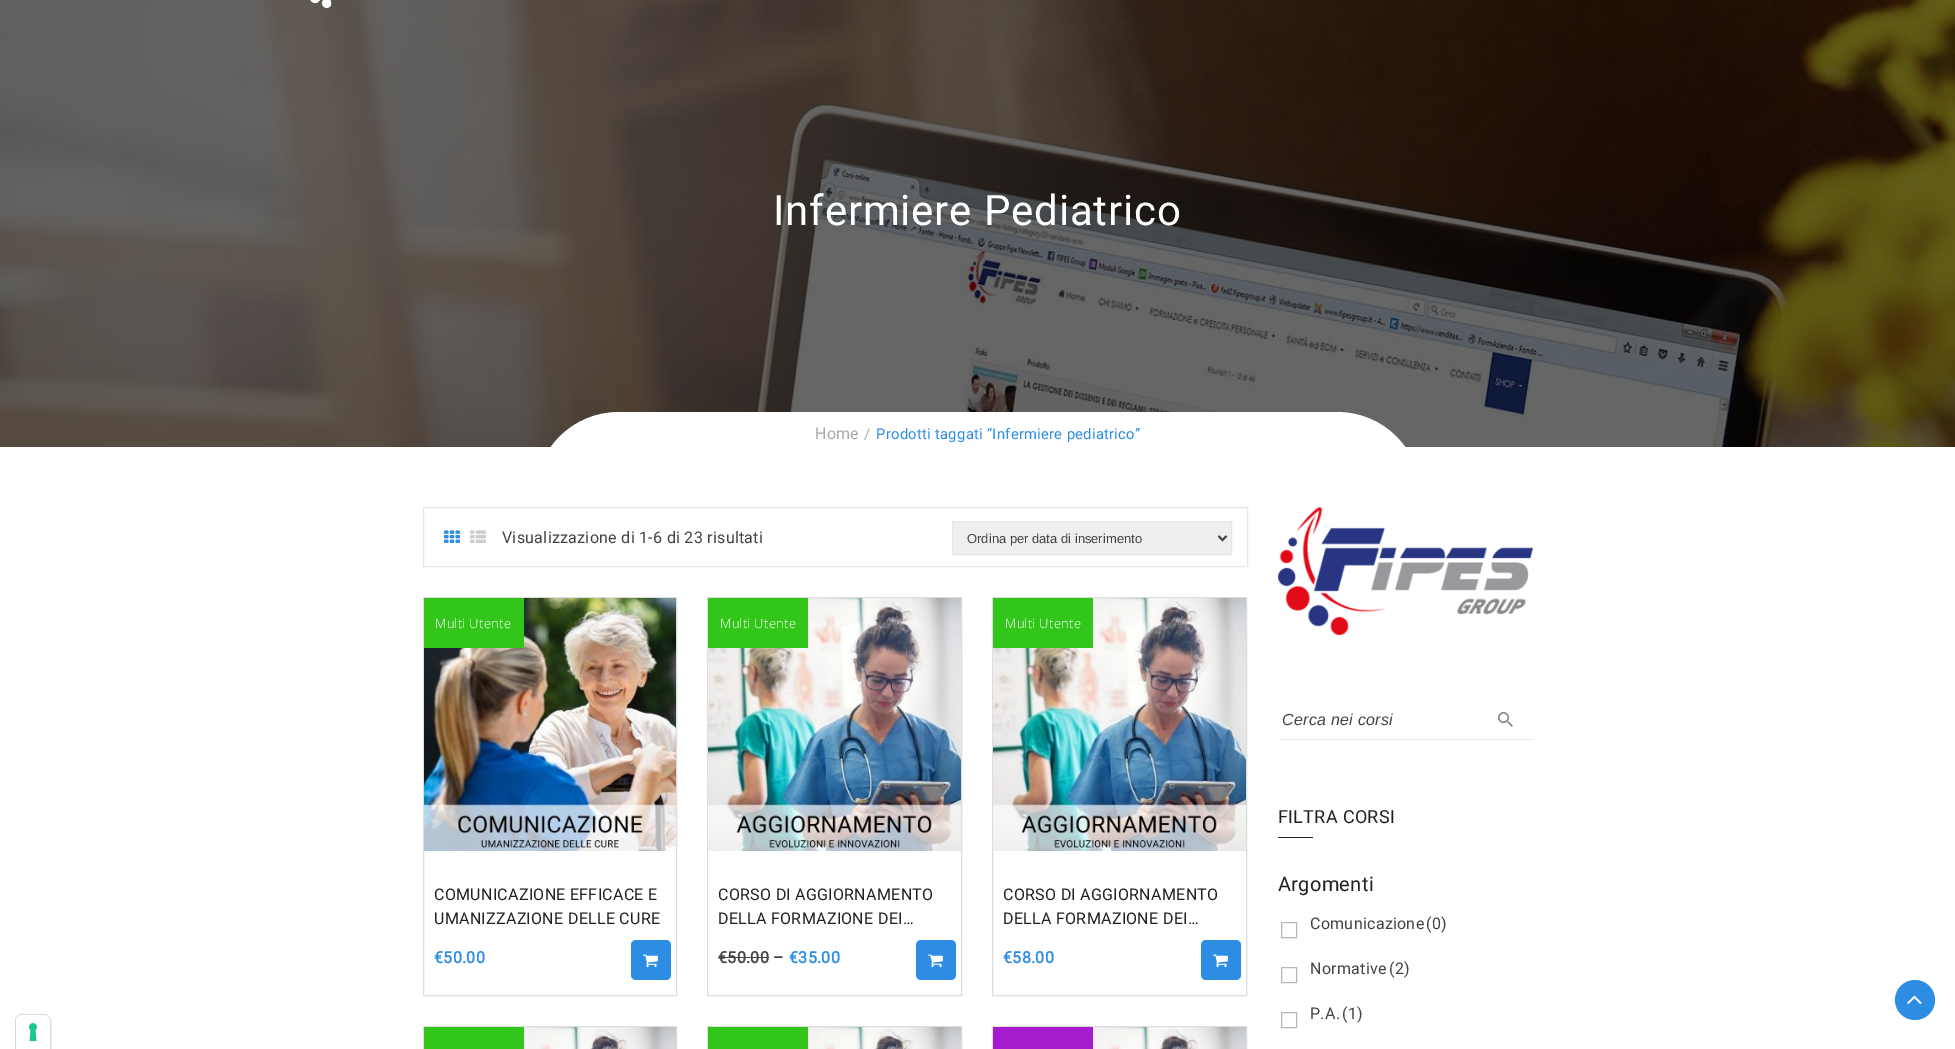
%!PS
<< /PageSize [1955 1049] >> setpagedevice
/mt/moveto load def
/li/lineto load def
/ct/curveto load def
/cp/closepath load def
/fl/fill load def
/st/stroke load def
/gs/gsave load def
/gr/grestore load def
/lw/setlinewidth load def
/co { dup -16 bitshift 255 div exch dup -8 bitshift 255 and 255 div exch 255 and 255 div setrgbcolor } def
/fn { [ exch dup neg 0 0 3 -1 roll 0 0 ] selectfont } def
/tx { co fn moveto show } def
/bx { co rectfill } def
/ci { newpath 0 360 arc closepath } def
/rr { 5 dict begin { /r /h /w /y /x } { exch def } forall
  x r add y moveto x w add y 2 copy h add r arct x w add y h add x 1 index r arct
  x y h add x y r arct x y 2 copy exch w add exch r arct closepath end } def
/im { 5 dict begin { /h /w /y /x /name } { exch def } forall
  gsave x y translate w h scale
  w h 8 [w 0 0 h 0 0] name (r) file false 3 colorimage grestore end } def
0 1049 translate 1 -1 scale
4 setmiterlimit
0 0 1955 1049 16#FFFFFF bx
(media/2.raw) 0 0 1955 447 im
(media/1.raw) 310 0 22 8 im
619 412 mt 1337 412 li 1383.5 412 1421 449.5 1421 496 ct 1421 447 li 535 447 li 535 496 li 535 449.5 572.5 412 619 412 ct cp fl
16#E7E7E7 co
423.5 507.5 824 59 rectstroke
(media/3.raw) 444 530 16 13 im
(media/4.raw) 470 530 16 13 im
16#EFEFEF co
952.5 521.5 mt 1231.5 521.5 li 1231.5 554.5 li 952.5 554.5 li cp gs fl gr
16#E7E7E7 co
st
16#444444 co
2 lw
1218.5 536 mt 1222.5 540 li 1226.5 536 li st
16#DDDDDD co
1 lw
423.5 597.5 253 398 rectstroke
(media/5.raw) 424 598 252 253 im
424 598 100 50 16#32C61B bx
16#2C8DE2 co
631 940 40 40 5 rr fl
(media/6.raw) 643 954 15 14 im
16#DDDDDD co
707.5 597.5 254 398 rectstroke
(media/7.raw) 708 598 253 253 im
708 598 100 50 16#32C61B bx
718 957 51 1 16#444444 bx
16#2C8DE2 co
916 940 40 40 5 rr fl
(media/6.raw) 928 954 15 14 im
16#DDDDDD co
992.5 597.5 254 398 rectstroke
(media/7.raw) 993 598 253 253 im
993 598 100 50 16#32C61B bx
16#2C8DE2 co
1201 940 40 40 5 rr fl
(media/6.raw) 1213 954 15 14 im
16#DDDDDD co
423.5 1026.5 253 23 rectstroke
424 1027 100 22 16#32C61B bx
(media/8.raw) 524 1027 152 22 im
16#DDDDDD co
707.5 1026.5 254 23 rectstroke
708 1027 100 22 16#32C61B bx
(media/9.raw) 808 1027 153 22 im
16#DDDDDD co
992.5 1026.5 254 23 rectstroke
993 1027 100 22 16#A51CCE bx
(media/9.raw) 1093 1027 153 22 im
(media/10.raw) 1278 507 255 128 im
1278 739 255 1 16#E7E7E7 bx
1278 739 1 1 16#FFFFFF bx
(media/11.raw) 1498 712 15 15 im
1278 837 35 1 16#202121 bx
16#B4B9BE co
1281.5 922.5 15 15 rectstroke
1281.5 967.5 15 15 rectstroke
1281.5 1012.5 15 15 rectstroke
16#2C8DE2 co
1915 1000 20 ci fl
(media/12.raw) 1907 995 15 9 im
16#D9D9D9 co
22 1014.5 mt 44 1014.5 li 47.5 1014.5 50.5 1017.5 50.5 1021 ct 50.5 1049.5 li 15.5 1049.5 li 15.5 1021 li 15.5 1017.5 18.5 1014.5 22 1014.5 ct cp st
16#FFFFFF co
22 1015 mt 44 1015 li 47.5 1015 50 1017.5 50 1021 ct 50 1049 li 16 1049 li 16 1021 li 16 1017.5 18.5 1015 22 1015 ct cp fl
(media/13.raw) 29 1023 8 18 im
/Roboto-Regular 42 fn
773 225 mt .8 0 (Infermiere Pediatrico) ashow
/Roboto-Regular 16 fn
16#A9A9A9 co
815 439 mt .3 0 (Home) ashow
/Roboto-Regular 14.75 fn
864 439 mt .3 0 (/) ashow
16#2C8DE2 co
876 439 mt .3 0 (Prodotti taggati “Infermiere pediatrico”) ashow
/Roboto-Regular 16 fn
16#444444 co
502 543 mt .3 0 (Visualizzazione di 1-6 di 23 risultati) ashow
(Ordina per data di inserimento) 967 543 /LiberationSans-Regular 13 16#444444 tx
/OpenSans-Light 13 fn
16#FFFFFF co
435 628 mt .3 0 (Multi Utente) ashow
/Roboto-Regular 16 fn
16#202121 co
434 900 mt .3 0 (COMUNICAZIONE EFFICACE E) ashow
434 924 mt .3 0 (UMANIZZAZIONE DELLE CURE) ashow
/Roboto-Bold 16 fn
16#2C8DE2 co
434 963 mt .3 0 (€50.00) ashow
/OpenSans-Light 13 fn
16#FFFFFF co
720 628 mt .3 0 (Multi Utente) ashow
/Roboto-Regular 16 fn
16#202121 co
718 900 mt .3 0 (CORSO DI AGGIORNAMENTO) ashow
718 924 mt .3 0 (DELLA FORMAZIONE DEI…) ashow
/Roboto-Bold 16 fn
16#444444 co
718 963 mt .3 0 (€50.00 –) ashow
16#2C8DE2 co
789 963 mt .3 0 (€35.00) ashow
/OpenSans-Light 13 fn
16#FFFFFF co
1005 628 mt .3 0 (Multi Utente) ashow
/Roboto-Regular 16 fn
16#202121 co
1003 900 mt .3 0 (CORSO DI AGGIORNAMENTO) ashow
1003 924 mt .3 0 (DELLA FORMAZIONE DEI…) ashow
/Roboto-Bold 16 fn
16#2C8DE2 co
1003 963 mt .3 0 (€58.00) ashow
/LiberationSans-Italic 16 fn
16#444444 co
1282 725 mt .3 0 (Cerca nei corsi) ashow
/Roboto-Regular 18 fn
16#202121 co
1278 823 mt .3 0 (FILTRA CORSI) ashow
/Roboto-Regular 20 fn
1278 891 mt .3 0 (Argomenti) ashow
/Roboto-Regular 16 fn
16#444444 co
1310 929 mt .3 0 (Comunicazione) ashow
1426 929 mt .3 0 (\(0\)) ashow
1310 974 mt .3 0 (Normative) ashow
1389 974 mt .3 0 (\(2\)) ashow
1310 1019 mt .3 0 (P.A.) ashow
1342 1019 mt .3 0 (\(1\)) ashow
showpage
